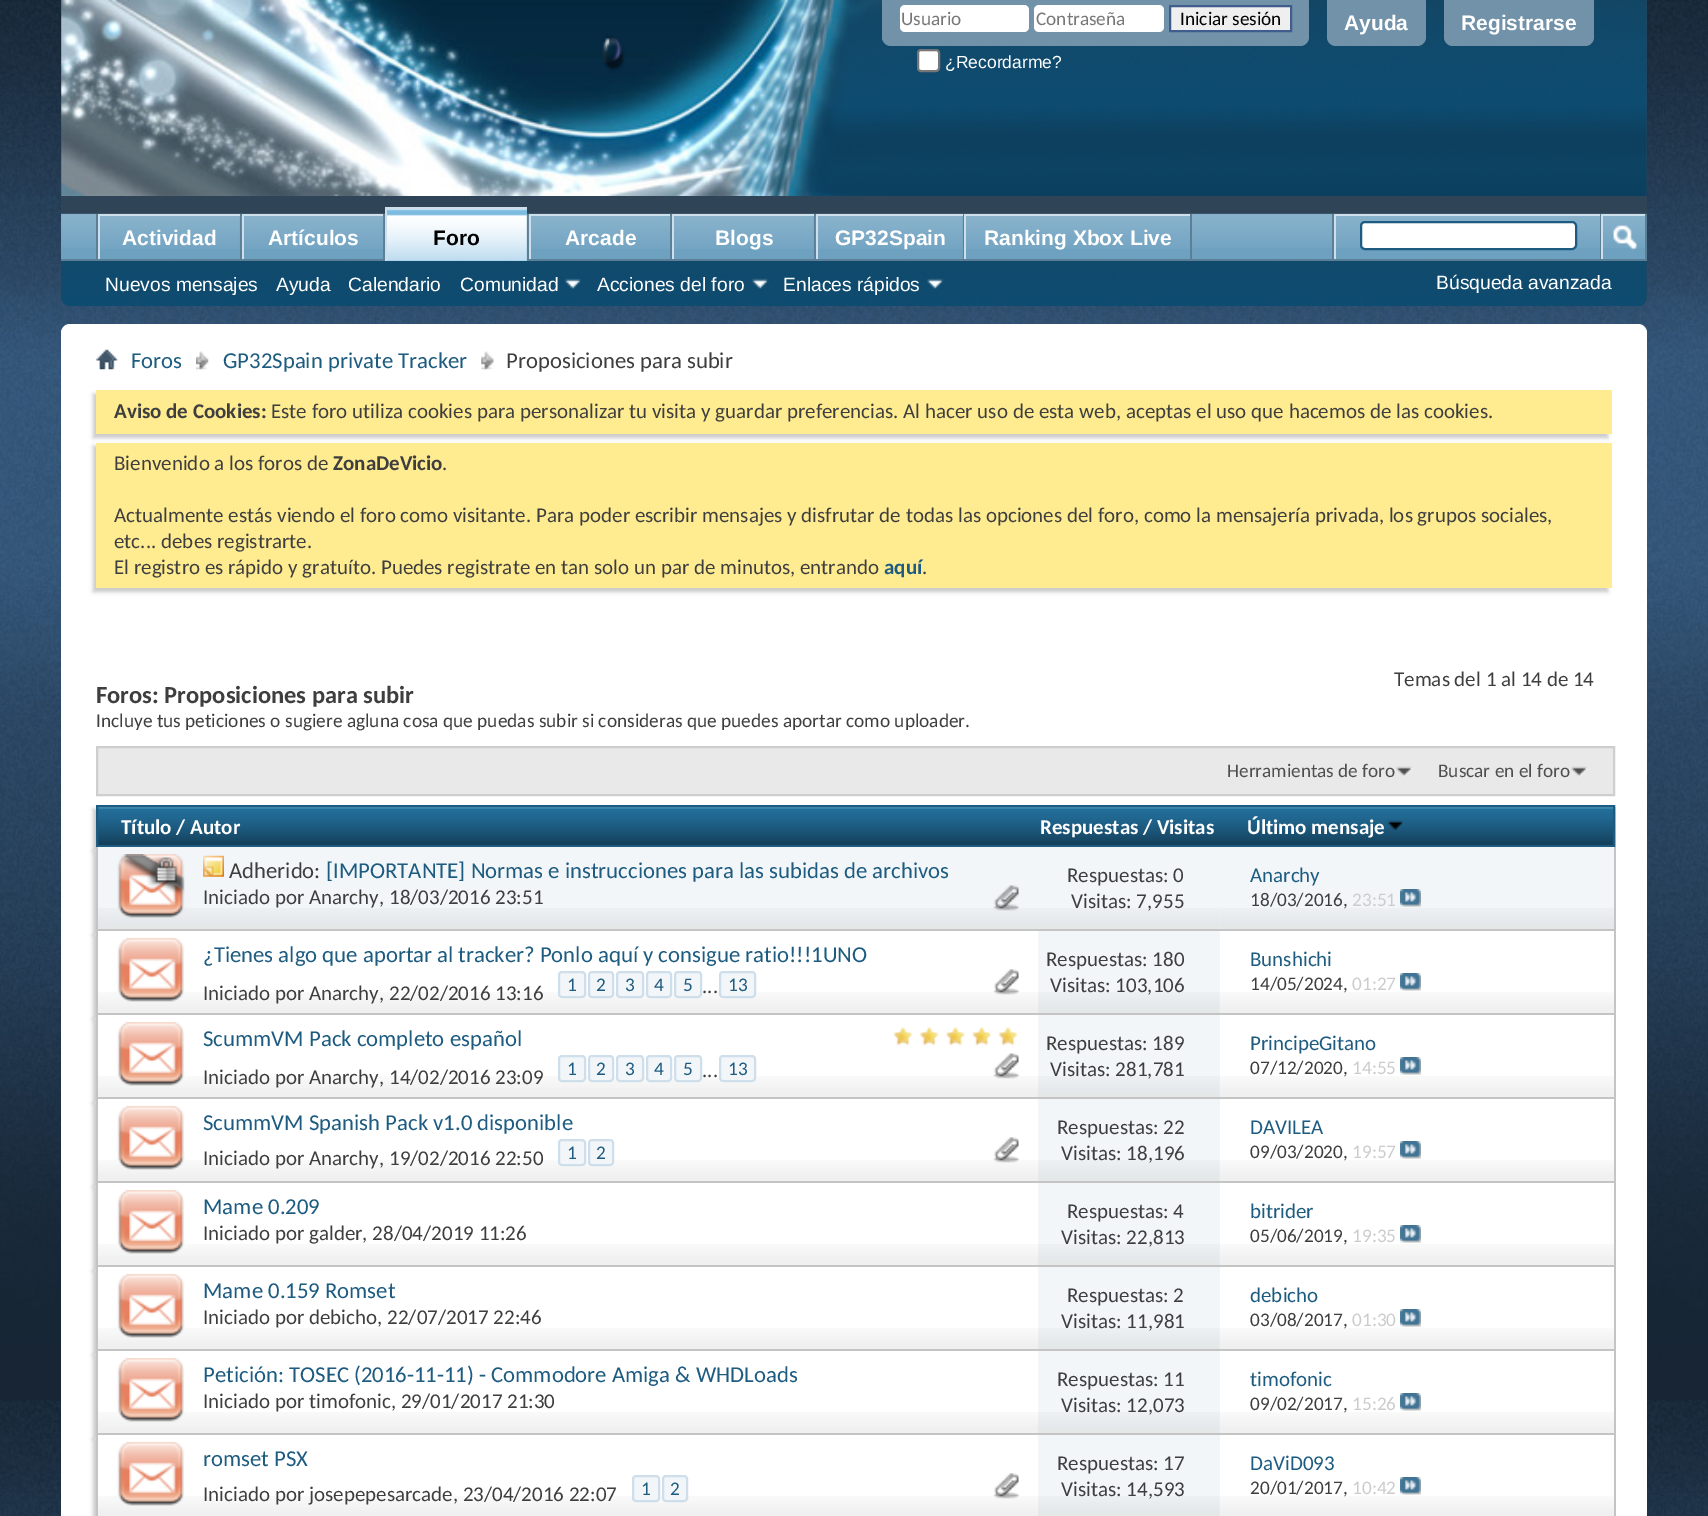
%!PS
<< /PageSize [1708 1516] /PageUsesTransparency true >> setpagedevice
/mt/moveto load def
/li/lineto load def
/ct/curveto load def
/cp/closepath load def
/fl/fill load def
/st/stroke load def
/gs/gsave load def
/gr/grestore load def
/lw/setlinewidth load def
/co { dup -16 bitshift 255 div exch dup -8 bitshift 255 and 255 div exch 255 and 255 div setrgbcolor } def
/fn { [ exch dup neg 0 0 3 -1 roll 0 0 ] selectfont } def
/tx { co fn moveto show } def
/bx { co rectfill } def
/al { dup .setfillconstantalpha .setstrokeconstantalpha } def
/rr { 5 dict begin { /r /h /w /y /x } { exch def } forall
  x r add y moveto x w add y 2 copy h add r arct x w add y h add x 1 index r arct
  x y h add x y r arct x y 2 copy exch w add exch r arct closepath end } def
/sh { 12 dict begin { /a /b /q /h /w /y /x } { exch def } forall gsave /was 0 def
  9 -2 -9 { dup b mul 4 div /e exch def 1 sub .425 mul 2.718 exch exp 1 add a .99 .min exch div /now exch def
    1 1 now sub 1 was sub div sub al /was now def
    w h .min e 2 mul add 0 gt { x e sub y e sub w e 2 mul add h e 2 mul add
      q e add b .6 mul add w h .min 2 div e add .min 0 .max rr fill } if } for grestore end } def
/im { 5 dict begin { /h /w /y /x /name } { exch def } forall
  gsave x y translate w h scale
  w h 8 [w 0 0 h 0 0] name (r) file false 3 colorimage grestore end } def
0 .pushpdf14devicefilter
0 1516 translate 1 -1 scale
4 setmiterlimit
0 0 1708 1516 16#FFFFFF bx
(media/1.raw) 0 0 1708 1516 im
16#2F4456 co
61 0 mt 1647 0 li 1647 297 li 1647 302 1643 306 1638 306 ct 70 306 li 65 306 61 302 61 297 ct cp fl
(media/2.raw) 61 0 1586 196 im
(media/3.raw) 61 0 824 196 im
16#7192A8 co
882 0 mt 1309 0 li 1309 37 li 1309 42 1305 46 1300 46 ct 891 46 li 886 46 882 42 882 37 ct cp fl
16#FFFFFF co
900 5 129 27 5 rr fl
1034 5 130 27 5 rr fl
16#EFEFEF co
1170 6 mt 1291 6 li 1291 31 li 1170 31 li cp gs fl gr
16#415D8D co
2 lw
st
16#FFFFFF co
918 50 21 21 3 rr gs fl gr
16#767676 co
st
16#7192A8 co
1327 0 mt 1426 0 li 1426 37 li 1426 42 1422 46 1417 46 ct 1336 46 li 1331 46 1327 42 1327 37 ct cp fl
1444 0 mt 1594 0 li 1594 37 li 1594 42 1590 46 1585 46 ct 1453 46 li 1448 46 1444 42 1444 37 ct cp fl
16#2F4456 co
61 214 mt 1647 214 li 1647 297 li 1647 302 1643 306 1638 306 ct 70 306 li 65 306 61 302 61 297 ct cp fl
(media/4.raw) 61 213 1586 93 im
61 214 1584 45 16#6EA1C0 bx
(media/5.raw) 61 213 1586 35 im
240 214 2 47 16#5A7F97 bx
96 214 2 47 16#5A7F97 bx
100 216 140 32 16#6EA1C0 bx
(media/6.raw) 100 216 140 33 im
98 214 142 2 16#CEDFEB bx
98 214 2 47 16#CEDFEB bx
383 214 2 47 16#5A7F97 bx
244 216 139 32 16#6EA1C0 bx
(media/7.raw) 241 215 143 34 im
242 214 141 2 16#CEDFEB bx
242 214 2 47 16#CEDFEB bx
527 214 2 45 16#5A7F97 bx
670 214 2 47 16#5A7F97 bx
531 216 139 32 16#6EA1C0 bx
(media/7.raw) 528 215 143 34 im
529 214 141 2 16#CEDFEB bx
529 214 2 47 16#CEDFEB bx
814 214 2 47 16#5A7F97 bx
672 214 142 2 16#CEDFEB bx
672 214 2 47 16#CEDFEB bx
963 214 1 47 16#5A7F97 bx
818 216 145 32 16#6EA1C0 bx
(media/9.raw) 815 215 148 34 im
816 214 147 2 16#CEDFEB bx
816 214 2 47 16#CEDFEB bx
1190 214 2 47 16#5A7F97 bx
964 214 226 2 16#CEDFEB bx
964 214 2 47 16#CEDFEB bx
61 259 1586 2 16#5A7F97 bx
387 209 140 52 16#7EBBE0 bx
(media/8.raw) 387 209 140 52 im
385 207 142 2 16#CEDFEB bx
385 207 2 54 16#CEDFEB bx
674 216 140 32 16#6EA1C0 bx
(media/6.raw) 674 216 140 33 im
966 216 224 32 16#6EA1C0 bx
(media/10.raw) 966 216 224 33 im
(media/11.raw) 565 278 16 11 im
(media/12.raw) 752 278 17 11 im
(media/13.raw) 927 278 17 11 im
1332 214 2 45 16#5A7F97 bx
1334 214 266 2 16#CEDFEB bx
1334 214 2 45 16#CEDFEB bx
16#FFFFFF co
1361 222 215 27 4 rr gs fl gr
16#1D5B80 co
st
1645 214 2 45 16#5A7F97 bx
1600 214 1 45 16#5A7F97 bx
1601 214 44 2 16#CEDFEB bx
1601 214 2 45 16#CEDFEB bx
(media/14.raw) 1613 225 24 26 im
16#FFFFFF co
61 324 1586 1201 9 rr fl
(media/15.raw) 96 349 22 21 im
(media/16.raw) 196 351 13 19 im
(media/17.raw) 481 351 13 19 im
16#C8C8C8 co
93 394 1515 44 0 2 1 sh
96 390 1516 44 16#FFEB90 bx
16#C8C8C8 co
93 446 1515 146 0 2 1 sh
96 443 1516 145 16#FFEB90 bx
16#E9E9E9 co
97 747 mt 1614 747 li 1614 795 li 97 795 li cp gs fl gr
16#CECECE co
st
(media/18.raw) 1396 766 17 11 im
(media/19.raw) 1571 766 17 11 im
16#C8C8C8 co
93 809 1519 42 0 2 1 sh
(media/20.raw) 98 806 1518 41 im
16#1D5B80 co
97 806 1517 40 rectstroke
(media/21.raw) 1387 820 17 10 im
16#C8C8C8 co
93 851 1515 84 0 2 1 sh
98 847 1516 82 16#F2F6F8 bx
(media/22.raw) 98 908 1516 21 im
1614 847 2 84 16#C4C4C4 bx
96 929 1519 2 16#C4C4C4 bx
96 847 2 84 16#C4C4C4 bx
(media/23.raw) 117 854 68 64 im
(media/24.raw) 203 855 21 22 im
(media/25.raw) 993 885 26 26 im
1038 908 182 21 16#F2F6F8 bx
(media/26.raw) 1038 908 182 21 im
(media/27.raw) 1400 889 21 18 im
16#C8C8C8 co
93 935 1515 84 0 2 1 sh
98 931 1513 82 16#FFFFFF bx
(media/28.raw) 98 992 1516 21 im
1614 931 2 84 16#C4C4C4 bx
96 1013 1519 2 16#C4C4C4 bx
96 931 2 84 16#C4C4C4 bx
(media/29.raw) 117 938 68 64 im
16#F2F6F8 co
559 972 26 25 3 rr gs fl gr
16#CEDFEB co
st
16#F2F6F8 co
589 972 24 25 3 rr gs fl gr
16#CEDFEB co
st
16#F2F6F8 co
617 972 26 25 3 rr gs fl gr
16#CEDFEB co
st
16#F2F6F8 co
647 972 24 25 3 rr gs fl gr
16#CEDFEB co
st
16#F2F6F8 co
675 972 26 25 3 rr gs fl gr
16#CEDFEB co
st
16#F2F6F8 co
720 972 35 25 3 rr gs fl gr
16#CEDFEB co
st
(media/30.raw) 993 969 26 26 im
1038 931 182 82 16#F2F6F8 bx
(media/31.raw) 1038 992 182 21 im
(media/32.raw) 1400 973 21 18 im
16#C8C8C8 co
93 1019 1515 84 0 2 1 sh
98 1015 1513 82 16#FFFFFF bx
(media/33.raw) 98 1076 1516 21 im
1614 1015 2 84 16#C4C4C4 bx
96 1097 1519 2 16#C4C4C4 bx
96 1015 2 84 16#C4C4C4 bx
(media/34.raw) 117 1022 68 64 im
(media/35.raw) 893 1027 125 19 im
16#F2F6F8 co
559 1056 26 25 3 rr gs fl gr
16#CEDFEB co
st
16#F2F6F8 co
589 1056 24 25 3 rr gs fl gr
16#CEDFEB co
st
16#F2F6F8 co
617 1056 26 25 3 rr gs fl gr
16#CEDFEB co
st
16#F2F6F8 co
647 1056 24 25 3 rr gs fl gr
16#CEDFEB co
st
16#F2F6F8 co
675 1056 26 25 3 rr gs fl gr
16#CEDFEB co
st
16#F2F6F8 co
720 1056 35 25 3 rr gs fl gr
16#CEDFEB co
st
(media/36.raw) 993 1053 26 26 im
1038 1015 182 82 16#F2F6F8 bx
(media/37.raw) 1038 1076 182 21 im
(media/38.raw) 1400 1057 21 18 im
16#C8C8C8 co
93 1103 1515 84 0 2 1 sh
98 1099 1513 82 16#FFFFFF bx
(media/33.raw) 98 1160 1516 21 im
1614 1099 2 84 16#C4C4C4 bx
96 1181 1519 2 16#C4C4C4 bx
96 1099 2 84 16#C4C4C4 bx
(media/34.raw) 117 1106 68 64 im
16#F2F6F8 co
559 1140 26 25 3 rr gs fl gr
16#CEDFEB co
st
16#F2F6F8 co
589 1140 24 25 3 rr gs fl gr
16#CEDFEB co
st
(media/36.raw) 993 1137 26 26 im
1038 1099 182 82 16#F2F6F8 bx
(media/37.raw) 1038 1160 182 21 im
(media/38.raw) 1400 1141 21 18 im
16#C8C8C8 co
93 1187 1515 84 0 2 1 sh
98 1183 1513 82 16#FFFFFF bx
(media/33.raw) 98 1244 1516 21 im
1614 1183 2 84 16#C4C4C4 bx
96 1265 1519 2 16#C4C4C4 bx
96 1183 2 84 16#C4C4C4 bx
(media/34.raw) 117 1190 68 64 im
1038 1183 182 82 16#F2F6F8 bx
(media/37.raw) 1038 1244 182 21 im
(media/38.raw) 1400 1225 21 18 im
16#C8C8C8 co
93 1271 1515 84 0 2 1 sh
98 1267 1513 82 16#FFFFFF bx
(media/28.raw) 98 1328 1516 21 im
1614 1267 2 84 16#C4C4C4 bx
96 1349 1519 2 16#C4C4C4 bx
96 1267 2 84 16#C4C4C4 bx
(media/39.raw) 117 1274 68 64 im
1038 1267 182 82 16#F2F6F8 bx
(media/31.raw) 1038 1328 182 21 im
(media/38.raw) 1400 1309 21 18 im
16#C8C8C8 co
93 1355 1515 84 0 2 1 sh
98 1351 1513 82 16#FFFFFF bx
(media/40.raw) 98 1412 1516 21 im
1614 1351 2 84 16#C4C4C4 bx
96 1433 1519 2 16#C4C4C4 bx
96 1351 2 84 16#C4C4C4 bx
(media/29.raw) 117 1358 68 64 im
1038 1351 182 82 16#F2F6F8 bx
(media/26.raw) 1038 1412 182 21 im
(media/32.raw) 1400 1393 21 18 im
16#C8C8C8 co
93 1439 1515 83 0 2 1 sh
98 1435 1513 81 16#FFFFFF bx
(media/41.raw) 98 1496 1516 20 im
1614 1435 2 81 16#C4C4C4 bx
96 1435 2 81 16#C4C4C4 bx
(media/29.raw) 117 1442 68 64 im
16#F2F6F8 co
633 1476 26 25 3 rr gs fl gr
16#CEDFEB co
st
16#F2F6F8 co
663 1476 24 25 3 rr gs fl gr
16#CEDFEB co
st
(media/30.raw) 993 1473 26 26 im
1038 1435 182 81 16#F2F6F8 bx
(media/42.raw) 1038 1496 182 20 im
(media/32.raw) 1400 1477 21 18 im
(Usuario) 901 25 /Carlito-Regular 19.25 16#777777 tx
(Contraseña) 1036 25 /Carlito-Regular 19.25 16#777777 tx
(Iniciar sesión) 1180 25 /Carlito-Regular 19.25 16#000000 tx
(¿Recordarme?) 945 68 /LiberationSans-Regular 17.5 16#FFFFFF tx
(Ayuda) 1344 30 /LiberationSans-Bold 21 16#FFFFFF tx
(Registrarse) 1461 30 /LiberationSans-Bold 21 16#FFFFFF tx
(Actividad) 122 245 /LiberationSans-Bold 21 16#FFFFFF tx
(Artículos) 268 245 /LiberationSans-Bold 21 16#FFFFFF tx
(Foro) 433 245 /LiberationSans-Bold 21 16#000000 tx
(Arcade) 565 245 /LiberationSans-Bold 21 16#FFFFFF tx
(Blogs) 715 245 /LiberationSans-Bold 21 16#FFFFFF tx
(GP32Spain) 835 245 /LiberationSans-Bold 21 16#FFFFFF tx
(Ranking Xbox Live) 984 245 /LiberationSans-Bold 21 16#FFFFFF tx
(Nuevos mensajes) 105 291 /LiberationSans-Regular 19.25 16#FFFFFF tx
(Ayuda) 276 291 /LiberationSans-Regular 19.25 16#FFFFFF tx
(Calendario) 348 291 /LiberationSans-Regular 19.25 16#FFFFFF tx
(Comunidad) 460 291 /LiberationSans-Regular 19.25 16#FFFFFF tx
(Acciones del foro) 597 291 /LiberationSans-Regular 19.25 16#FFFFFF tx
(Enlaces rápidos) 783 291 /LiberationSans-Regular 19.25 16#FFFFFF tx
(Búsqueda avanzada) 1436 289 /LiberationSans-Regular 19.25 16#FFFFFF tx
(Foros) 131 368 /Carlito-Regular 22.75 16#1D5B80 tx
(GP32Spain private Tracker) 223 368 /Carlito-Regular 22.75 16#1D5B80 tx
(Proposiciones para subir) 506 368 /Carlito-Regular 22.75 16#3E3E3E tx
(Aviso de Cookies:) 114 418 /Carlito-Bold 21 16#3E3E3E tx
(Este foro utiliza cookies para personalizar tu visita y guardar preferencias. Al hacer uso de esta web, aceptas el uso que hacemos de las cookies.) 271 418 /Carlito-Regular 21 16#3E3E3E tx
(Bienvenido a los foros de) 114 470 /Carlito-Regular 21 16#3E3E3E tx
(ZonaDeVicio) 333 470 /Carlito-Bold 21 16#3E3E3E tx
(.) 442 470 /Carlito-Regular 21 16#3E3E3E tx
(Actualmente estás viendo el foro como visitante. Para poder escribir mensajes y disfrutar de todas las opciones del foro, como la mensajería privada, los grupos sociales,) 114 522 /Carlito-Regular 21 16#3E3E3E tx
(etc... debes registrarte.) 114 548 /Carlito-Regular 21 16#3E3E3E tx
(El registro es rápido y gratuíto. Puedes registrate en tan solo un par de minutos, entrando) 114 574 /Carlito-Regular 21 16#3E3E3E tx
(aquí) 884 574 /Carlito-Bold 21 16#1D5B80 tx
(.) 922 574 /Carlito-Regular 21 16#3E3E3E tx
(Temas del 1 al 14 de 14) 1394 686 /Carlito-Regular 21 16#3E3E3E tx
(Foros: Proposiciones para subir) 96 703 /Carlito-Bold 24.5 16#3E3E3E tx
(Incluye tus peticiones o sugiere agluna cosa que puedas subir si consideras que puedes aportar como uploader.) 96 727 /Carlito-Regular 19.35 16#3E3E3E tx
(Herramientas de foro) 1227 777 /Carlito-Regular 19.25 16#4E4E4E tx
(Buscar en el foro) 1438 777 /Carlito-Regular 19.25 16#4E4E4E tx
(Título / Autor) 121 834 /Carlito-Bold 21 16#FFFFFF tx
(Respuestas / Visitas) 1040 834 /Carlito-Bold 21 16#FFFFFF tx
(Último mensaje) 1247 834 /Carlito-Bold 21 16#FFFFFF tx
(Adherido:) 229 878 /Carlito-Regular 22.75 16#3E3E3E tx
([IMPORTANTE] Normas e instrucciones para las subidas de archivos) 326 878 /Carlito-Regular 22.75 16#1D5B80 tx
(Iniciado por Anarchy, 18/03/2016 23:51) 203 904 /Carlito-Regular 21 16#3E3E3E tx
(Respuestas: 0) 1067 882 /Carlito-Regular 21 16#3E3E3E tx
(Visitas: 7,955) 1071 908 /Carlito-Regular 21 16#3E3E3E tx
(Anarchy) 1250 882 /Carlito-Regular 21 16#1D5B80 tx
(18/03/2016,) 1250 906 /Carlito-Regular 19.25 16#3E3E3E tx
(23:51) 1352 906 /Carlito-Regular 19.25 16#CCCCCC tx
(¿Tienes algo que aportar al tracker? Ponlo aquí y consigue ratio!!!1UNO) 203 962 /Carlito-Regular 22.75 16#1D5B80 tx
(Iniciado por Anarchy, 22/02/2016 13:16) 203 1000 /Carlito-Regular 21 16#3E3E3E tx
(1) 567 991 /Carlito-Regular 19.25 16#1D5B80 tx
(2) 596 991 /Carlito-Regular 19.25 16#1D5B80 tx
(3) 625 991 /Carlito-Regular 19.25 16#1D5B80 tx
(4) 654 991 /Carlito-Regular 19.25 16#1D5B80 tx
(5) 683 991 /Carlito-Regular 19.25 16#1D5B80 tx
(...) 702 993 /Carlito-Regular 21 16#3E3E3E tx
(13) 728 991 /Carlito-Regular 19.25 16#1D5B80 tx
(Respuestas: 180) 1046 966 /Carlito-Regular 21 16#3E3E3E tx
(Visitas: 103,106) 1050 992 /Carlito-Regular 21 16#3E3E3E tx
(Bunshichi) 1250 966 /Carlito-Regular 21 16#1D5B80 tx
(14/05/2024,) 1250 990 /Carlito-Regular 19.25 16#3E3E3E tx
(01:27) 1352 990 /Carlito-Regular 19.25 16#CCCCCC tx
(ScummVM Pack completo español) 203 1046 /Carlito-Regular 22.75 16#1D5B80 tx
(Iniciado por Anarchy, 14/02/2016 23:09) 203 1084 /Carlito-Regular 21 16#3E3E3E tx
(1) 567 1075 /Carlito-Regular 19.25 16#1D5B80 tx
(2) 596 1075 /Carlito-Regular 19.25 16#1D5B80 tx
(3) 625 1075 /Carlito-Regular 19.25 16#1D5B80 tx
(4) 654 1075 /Carlito-Regular 19.25 16#1D5B80 tx
(5) 683 1075 /Carlito-Regular 19.25 16#1D5B80 tx
(...) 702 1077 /Carlito-Regular 21 16#3E3E3E tx
(13) 728 1075 /Carlito-Regular 19.25 16#1D5B80 tx
(Respuestas: 189) 1046 1050 /Carlito-Regular 21 16#3E3E3E tx
(Visitas: 281,781) 1050 1076 /Carlito-Regular 21 16#3E3E3E tx
(PrincipeGitano) 1250 1050 /Carlito-Regular 21 16#1D5B80 tx
(07/12/2020,) 1250 1074 /Carlito-Regular 19.25 16#3E3E3E tx
(14:55) 1352 1074 /Carlito-Regular 19.25 16#CCCCCC tx
(ScummVM Spanish Pack v1.0 disponible) 203 1130 /Carlito-Regular 22.75 16#1D5B80 tx
(Iniciado por Anarchy, 19/02/2016 22:50) 203 1165 /Carlito-Regular 21 16#3E3E3E tx
(1) 567 1159 /Carlito-Regular 19.25 16#1D5B80 tx
(2) 596 1159 /Carlito-Regular 19.25 16#1D5B80 tx
(Respuestas: 22) 1057 1134 /Carlito-Regular 21 16#3E3E3E tx
(Visitas: 18,196) 1061 1160 /Carlito-Regular 21 16#3E3E3E tx
(DAVILEA) 1250 1134 /Carlito-Regular 21 16#1D5B80 tx
(09/03/2020,) 1250 1158 /Carlito-Regular 19.25 16#3E3E3E tx
(19:57) 1352 1158 /Carlito-Regular 19.25 16#CCCCCC tx
(Mame 0.209) 203 1214 /Carlito-Regular 22.75 16#1D5B80 tx
(Iniciado por galder, 28/04/2019 11:26) 203 1240 /Carlito-Regular 21 16#3E3E3E tx
(Respuestas: 4) 1067 1218 /Carlito-Regular 21 16#3E3E3E tx
(Visitas: 22,813) 1061 1244 /Carlito-Regular 21 16#3E3E3E tx
(bitrider) 1250 1218 /Carlito-Regular 21 16#1D5B80 tx
(05/06/2019,) 1250 1242 /Carlito-Regular 19.25 16#3E3E3E tx
(19:35) 1352 1242 /Carlito-Regular 19.25 16#CCCCCC tx
(Mame 0.159 Romset) 203 1298 /Carlito-Regular 22.75 16#1D5B80 tx
(Iniciado por debicho, 22/07/2017 22:46) 203 1324 /Carlito-Regular 21 16#3E3E3E tx
(Respuestas: 2) 1067 1302 /Carlito-Regular 21 16#3E3E3E tx
(Visitas: 11,981) 1061 1328 /Carlito-Regular 21 16#3E3E3E tx
(debicho) 1250 1302 /Carlito-Regular 21 16#1D5B80 tx
(03/08/2017,) 1250 1326 /Carlito-Regular 19.25 16#3E3E3E tx
(01:30) 1352 1326 /Carlito-Regular 19.25 16#CCCCCC tx
(Petición: TOSEC \(2016-11-11\) - Commodore Amiga & WHDLoads) 203 1382 /Carlito-Regular 22.75 16#1D5B80 tx
(Iniciado por timofonic, 29/01/2017 21:30) 203 1408 /Carlito-Regular 21 16#3E3E3E tx
(Respuestas: 11) 1057 1386 /Carlito-Regular 21 16#3E3E3E tx
(Visitas: 12,073) 1061 1412 /Carlito-Regular 21 16#3E3E3E tx
(timofonic) 1250 1386 /Carlito-Regular 21 16#1D5B80 tx
(09/02/2017,) 1250 1410 /Carlito-Regular 19.25 16#3E3E3E tx
(15:26) 1352 1410 /Carlito-Regular 19.25 16#CCCCCC tx
(romset PSX) 203 1466 /Carlito-Regular 22.75 16#1D5B80 tx
(Iniciado por josepepesarcade, 23/04/2016 22:07) 203 1501 /Carlito-Regular 21 16#3E3E3E tx
(1) 641 1495 /Carlito-Regular 19.25 16#1D5B80 tx
(2) 670 1495 /Carlito-Regular 19.25 16#1D5B80 tx
(Respuestas: 17) 1057 1470 /Carlito-Regular 21 16#3E3E3E tx
(Visitas: 14,593) 1061 1496 /Carlito-Regular 21 16#3E3E3E tx
(DaViD093) 1250 1470 /Carlito-Regular 21 16#1D5B80 tx
(20/01/2017,) 1250 1494 /Carlito-Regular 19.25 16#3E3E3E tx
(10:42) 1352 1494 /Carlito-Regular 19.25 16#CCCCCC tx
.poppdf14devicefilter showpage
